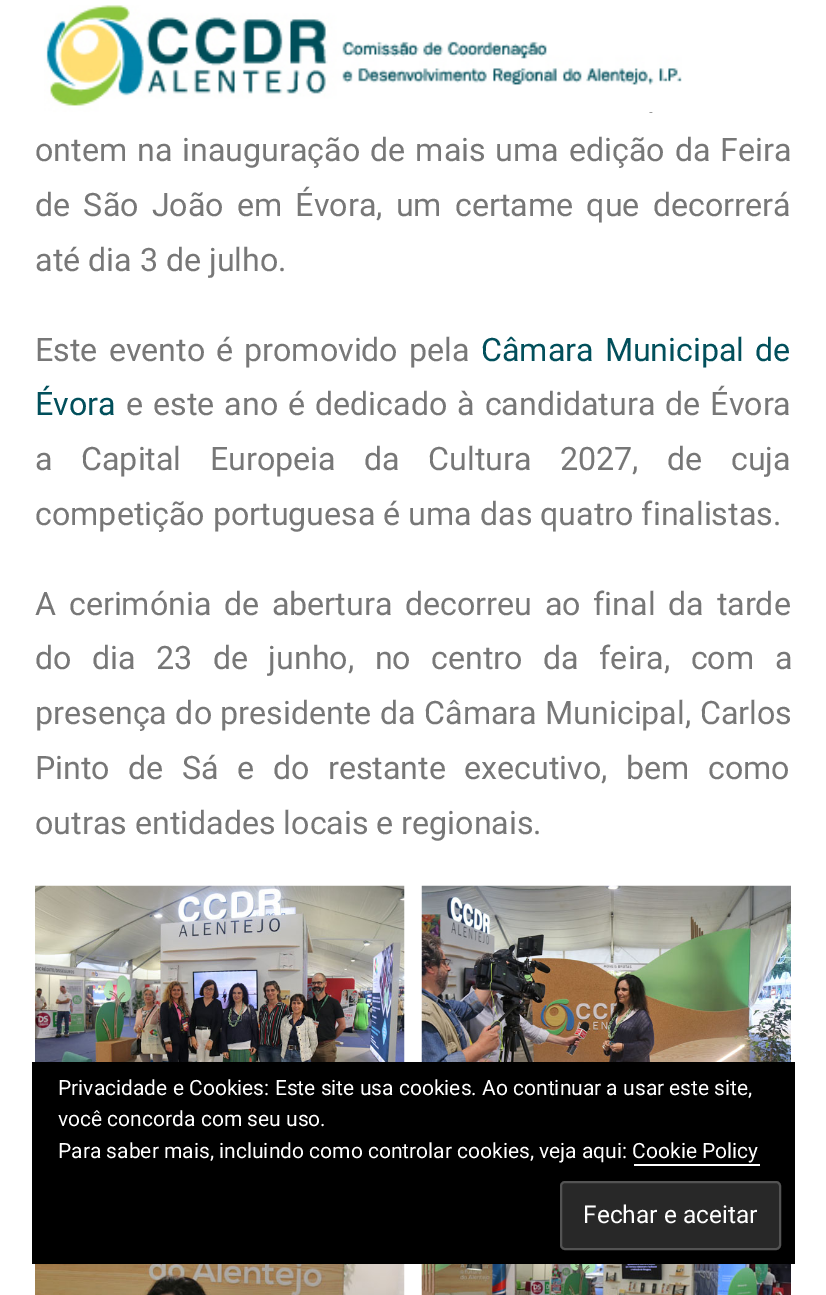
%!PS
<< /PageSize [826 1295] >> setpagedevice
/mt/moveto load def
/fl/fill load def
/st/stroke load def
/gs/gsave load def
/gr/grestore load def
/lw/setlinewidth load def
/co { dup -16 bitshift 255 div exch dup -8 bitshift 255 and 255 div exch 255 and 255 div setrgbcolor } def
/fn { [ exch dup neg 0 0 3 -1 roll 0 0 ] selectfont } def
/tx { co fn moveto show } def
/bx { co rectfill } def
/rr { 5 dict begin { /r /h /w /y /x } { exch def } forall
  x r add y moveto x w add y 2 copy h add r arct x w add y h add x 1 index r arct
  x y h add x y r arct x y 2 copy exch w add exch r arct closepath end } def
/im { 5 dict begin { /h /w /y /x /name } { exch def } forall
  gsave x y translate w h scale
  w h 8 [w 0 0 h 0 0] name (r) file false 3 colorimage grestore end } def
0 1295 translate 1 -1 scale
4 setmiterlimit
0 0 826 1295 16#FFFFFF bx
(media/1.raw) 44 5 638 108 im
(media/2.raw) 35 885 370 177 im
(media/3.raw) 421 885 370 177 im
(media/4.raw) 35 1264 370 31 im
(media/5.raw) 421 1264 370 31 im
32 1062 763 202 16#000000 bx
634 1164 126 2 16#FFFFFF bx
16#282828 co
561 1182 219 67 4 rr gs fl gr
16#535353 co
2 lw
st
/Roboto-Regular 32.2 fn
16#777777 co
35 161 mt 2 0 32 (ontem na inauguração de mais uma edição da Feira) widthshow
35 216 mt 5.25 0 32 (de São João em Évora, um certame que decorrerá) widthshow
(até dia 3 de julho.) 35 271 /Roboto-Regular 32.2 16#777777 tx
35 361 mt 3 0 32 (Este evento é promovido pela) widthshow
16#014F5B co
481 361 mt 3 0 32 (Câmara Municipal de) widthshow
(Évora) 35 415 /Roboto-Regular 32.2 16#014F5B tx
16#777777 co
126 415 mt 2 0 32 (e este ano é dedicado à candidatura de Évora) widthshow
35 470 mt 20.5 0 32 (a Capital Europeia da Cultura 2027, de cuja) widthshow
(competição portuguesa é uma das quatro finalistas.) 35 525 /Roboto-Regular 32.2 16#777777 tx
35 615 mt 4.75 0 32 (A cerimónia de abertura decorreu ao final da tarde) widthshow
35 669 mt 12.5 0 32 (do dia 23 de junho, no centro da feira, com a) widthshow
35 724 mt .5 0 32 (presença do presidente da Câmara Municipal, Carlos) widthshow
35 779 mt 10.5 0 32 (Pinto de Sá e do restante executivo, bem como) widthshow
(outras entidades locais e regionais.) 35 834 /Roboto-Regular 32.2 16#777777 tx
(Privacidade e Cookies: Este site usa cookies. Ao continuar a usar este site,) 58 1095 /Roboto-Regular 21 16#FFFFFF tx
(você concorda com seu uso.) 58 1126 /Roboto-Regular 21 16#FFFFFF tx
(Para saber mais, incluindo como controlar cookies, veja aqui: Cookie Policy) 58 1158 /Roboto-Regular 21 16#FFFFFF tx
(Fechar e aceitar) 583 1223 /Roboto-Regular 24.5 16#FFFFFF tx
showpage
